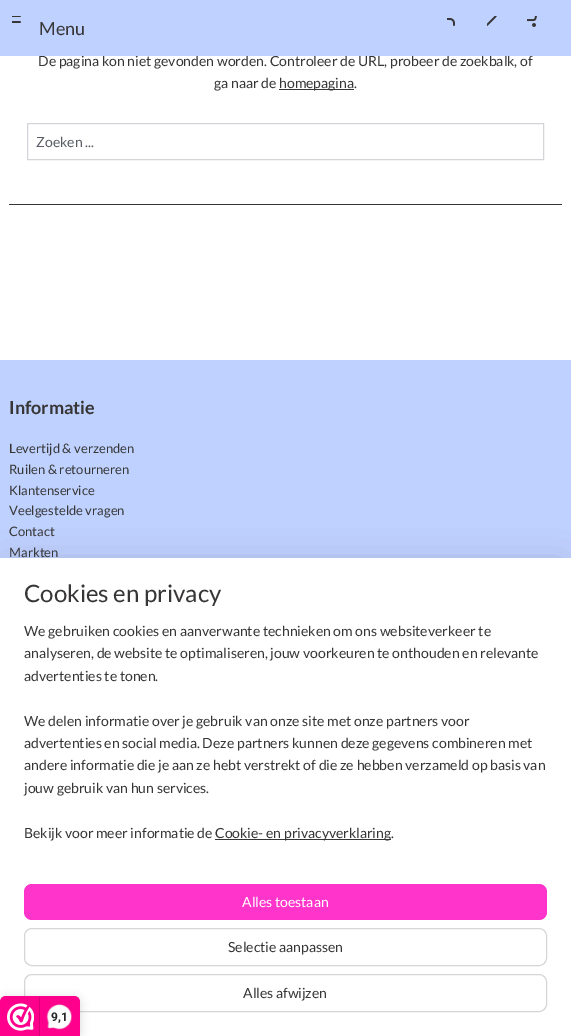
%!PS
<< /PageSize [571 1036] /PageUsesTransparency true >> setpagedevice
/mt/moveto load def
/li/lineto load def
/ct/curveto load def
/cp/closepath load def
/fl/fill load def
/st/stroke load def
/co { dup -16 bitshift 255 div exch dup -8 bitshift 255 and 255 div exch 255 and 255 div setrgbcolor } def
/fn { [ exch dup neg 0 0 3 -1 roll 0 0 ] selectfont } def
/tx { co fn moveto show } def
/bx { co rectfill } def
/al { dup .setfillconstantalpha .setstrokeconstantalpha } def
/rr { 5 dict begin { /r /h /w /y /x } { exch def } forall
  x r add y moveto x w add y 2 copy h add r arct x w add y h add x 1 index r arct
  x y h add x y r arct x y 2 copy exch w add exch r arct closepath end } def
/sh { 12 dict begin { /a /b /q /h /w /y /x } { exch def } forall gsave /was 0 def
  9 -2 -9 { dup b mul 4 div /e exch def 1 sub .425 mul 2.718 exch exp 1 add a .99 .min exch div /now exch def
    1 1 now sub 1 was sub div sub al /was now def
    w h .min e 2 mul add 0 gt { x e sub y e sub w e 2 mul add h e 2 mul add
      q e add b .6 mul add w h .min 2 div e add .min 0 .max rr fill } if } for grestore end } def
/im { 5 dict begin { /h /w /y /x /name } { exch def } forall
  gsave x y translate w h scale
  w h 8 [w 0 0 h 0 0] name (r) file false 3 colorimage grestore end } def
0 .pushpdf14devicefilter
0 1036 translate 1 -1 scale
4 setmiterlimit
0 0 571 1036 16#FFFFFF bx
9 204 553 1 16#373535 bx
279 89 75 1 16#373535 bx
16#D3D5D9 co
27.5 123.5 516 36 rectstroke
0 360 571 198 16#BED1FF bx
16#000000 co
10 568 551 458 0 18 .2 sh
0 558 571 478 16#FFFFFF bx
215 839 176 1 16#373535 bx
16#FF35CB co
24 884 523 36 8 rr fl
16#D6D6D6 co
24.5 928.5 522 37 7.5 rr st
24.5 974.5 522 37 7.5 rr st
16#000000 co
0 998 80 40 6 5 .15 sh
16#FE008C co
6 996 mt 74 996 li 77.5 996 80 998.5 80 1002 ct 80 1036 li 0 1036 li 0 1002 li 0 998.5 2.5 996 6 996 ct cp fl
(media/5.raw) 7 1003 27 28 im
39 997 1 39 16#D80077 bx
(media/6.raw) 46 1004 26 26 im
(De pagina kon niet gevonden worden. Controleer de URL, probeer de zoekbalk, of) 38 66 /Lato-Regular 14 16#373535 tx
0 0 571 56 16#BED1FF bx
(media/2.raw) 447 18 8 8 im
(media/4.raw) 527 16 10 11 im
(media/3.raw) 487 16 10 10 im
(media/1.raw) 12 16 9 7 im
(Menu) 39 35 /Lato-Regular 18 16#373535 tx
(ga naar de) 214 88 /Lato-Regular 14 16#373535 tx
(homepagina.) 279 88 /Lato-Regular 14 16#373535 tx
(Zoeken ...) 36 147 /Lato-Regular 14 16#575B62 tx
(Informatie) 9 414 /Lato-Bold 18 16#373535 tx
(Levertijd & verzenden) 9 453 /Lato-Regular 13 16#373535 tx
(Ruilen & retourneren) 9 474 /Lato-Regular 13 16#373535 tx
(Klantenservice) 9 495 /Lato-Regular 13 16#373535 tx
(Veelgestelde vragen) 9 515 /Lato-Regular 13 16#373535 tx
(Contact) 9 536 /Lato-Regular 13 16#373535 tx
(Markten) 9 557 /Lato-Regular 13 16#373535 tx
(Cookies en privacy) 24 602 /Lato-Regular 24 16#373535 tx
(We gebruiken cookies en aanverwante technieken om ons websiteverkeer te) 24 636 /Lato-Regular 14 16#373535 tx
(analyseren, de website te optimaliseren, jouw voorkeuren te onthouden en relevante) 24 658 /Lato-Regular 14 16#373535 tx
(advertenties te tonen.) 24 681 /Lato-Regular 14 16#373535 tx
(We delen informatie over je gebruik van onze site met onze partners voor) 24 726 /Lato-Regular 14 16#373535 tx
(advertenties en social media. Deze partners kunnen deze gegevens combineren met) 24 748 /Lato-Regular 14 16#373535 tx
(andere informatie die je aan ze hebt verstrekt of die ze hebben verzameld op basis van) 24 770 /Lato-Regular 14 16#373535 tx
(jouw gebruik van hun services.) 24 793 /Lato-Regular 14 16#373535 tx
(Bekijk voor meer informatie de) 24 838 /Lato-Regular 14 16#373535 tx
(Cookie- en privacyverklaring.) 215 838 /Lato-Regular 14 16#373535 tx
(Alles toestaan) 242 907 /Lato-Regular 14 16#FFFFFF tx
(Selectie aanpassen) 228 952 /Lato-Regular 14 16#373535 tx
(Alles afwijzen) 243 998 /Lato-Regular 14 16#373535 tx
(9,1) 51 1021 /Roboto-Bold 12 16#272626 tx
.poppdf14devicefilter showpage
